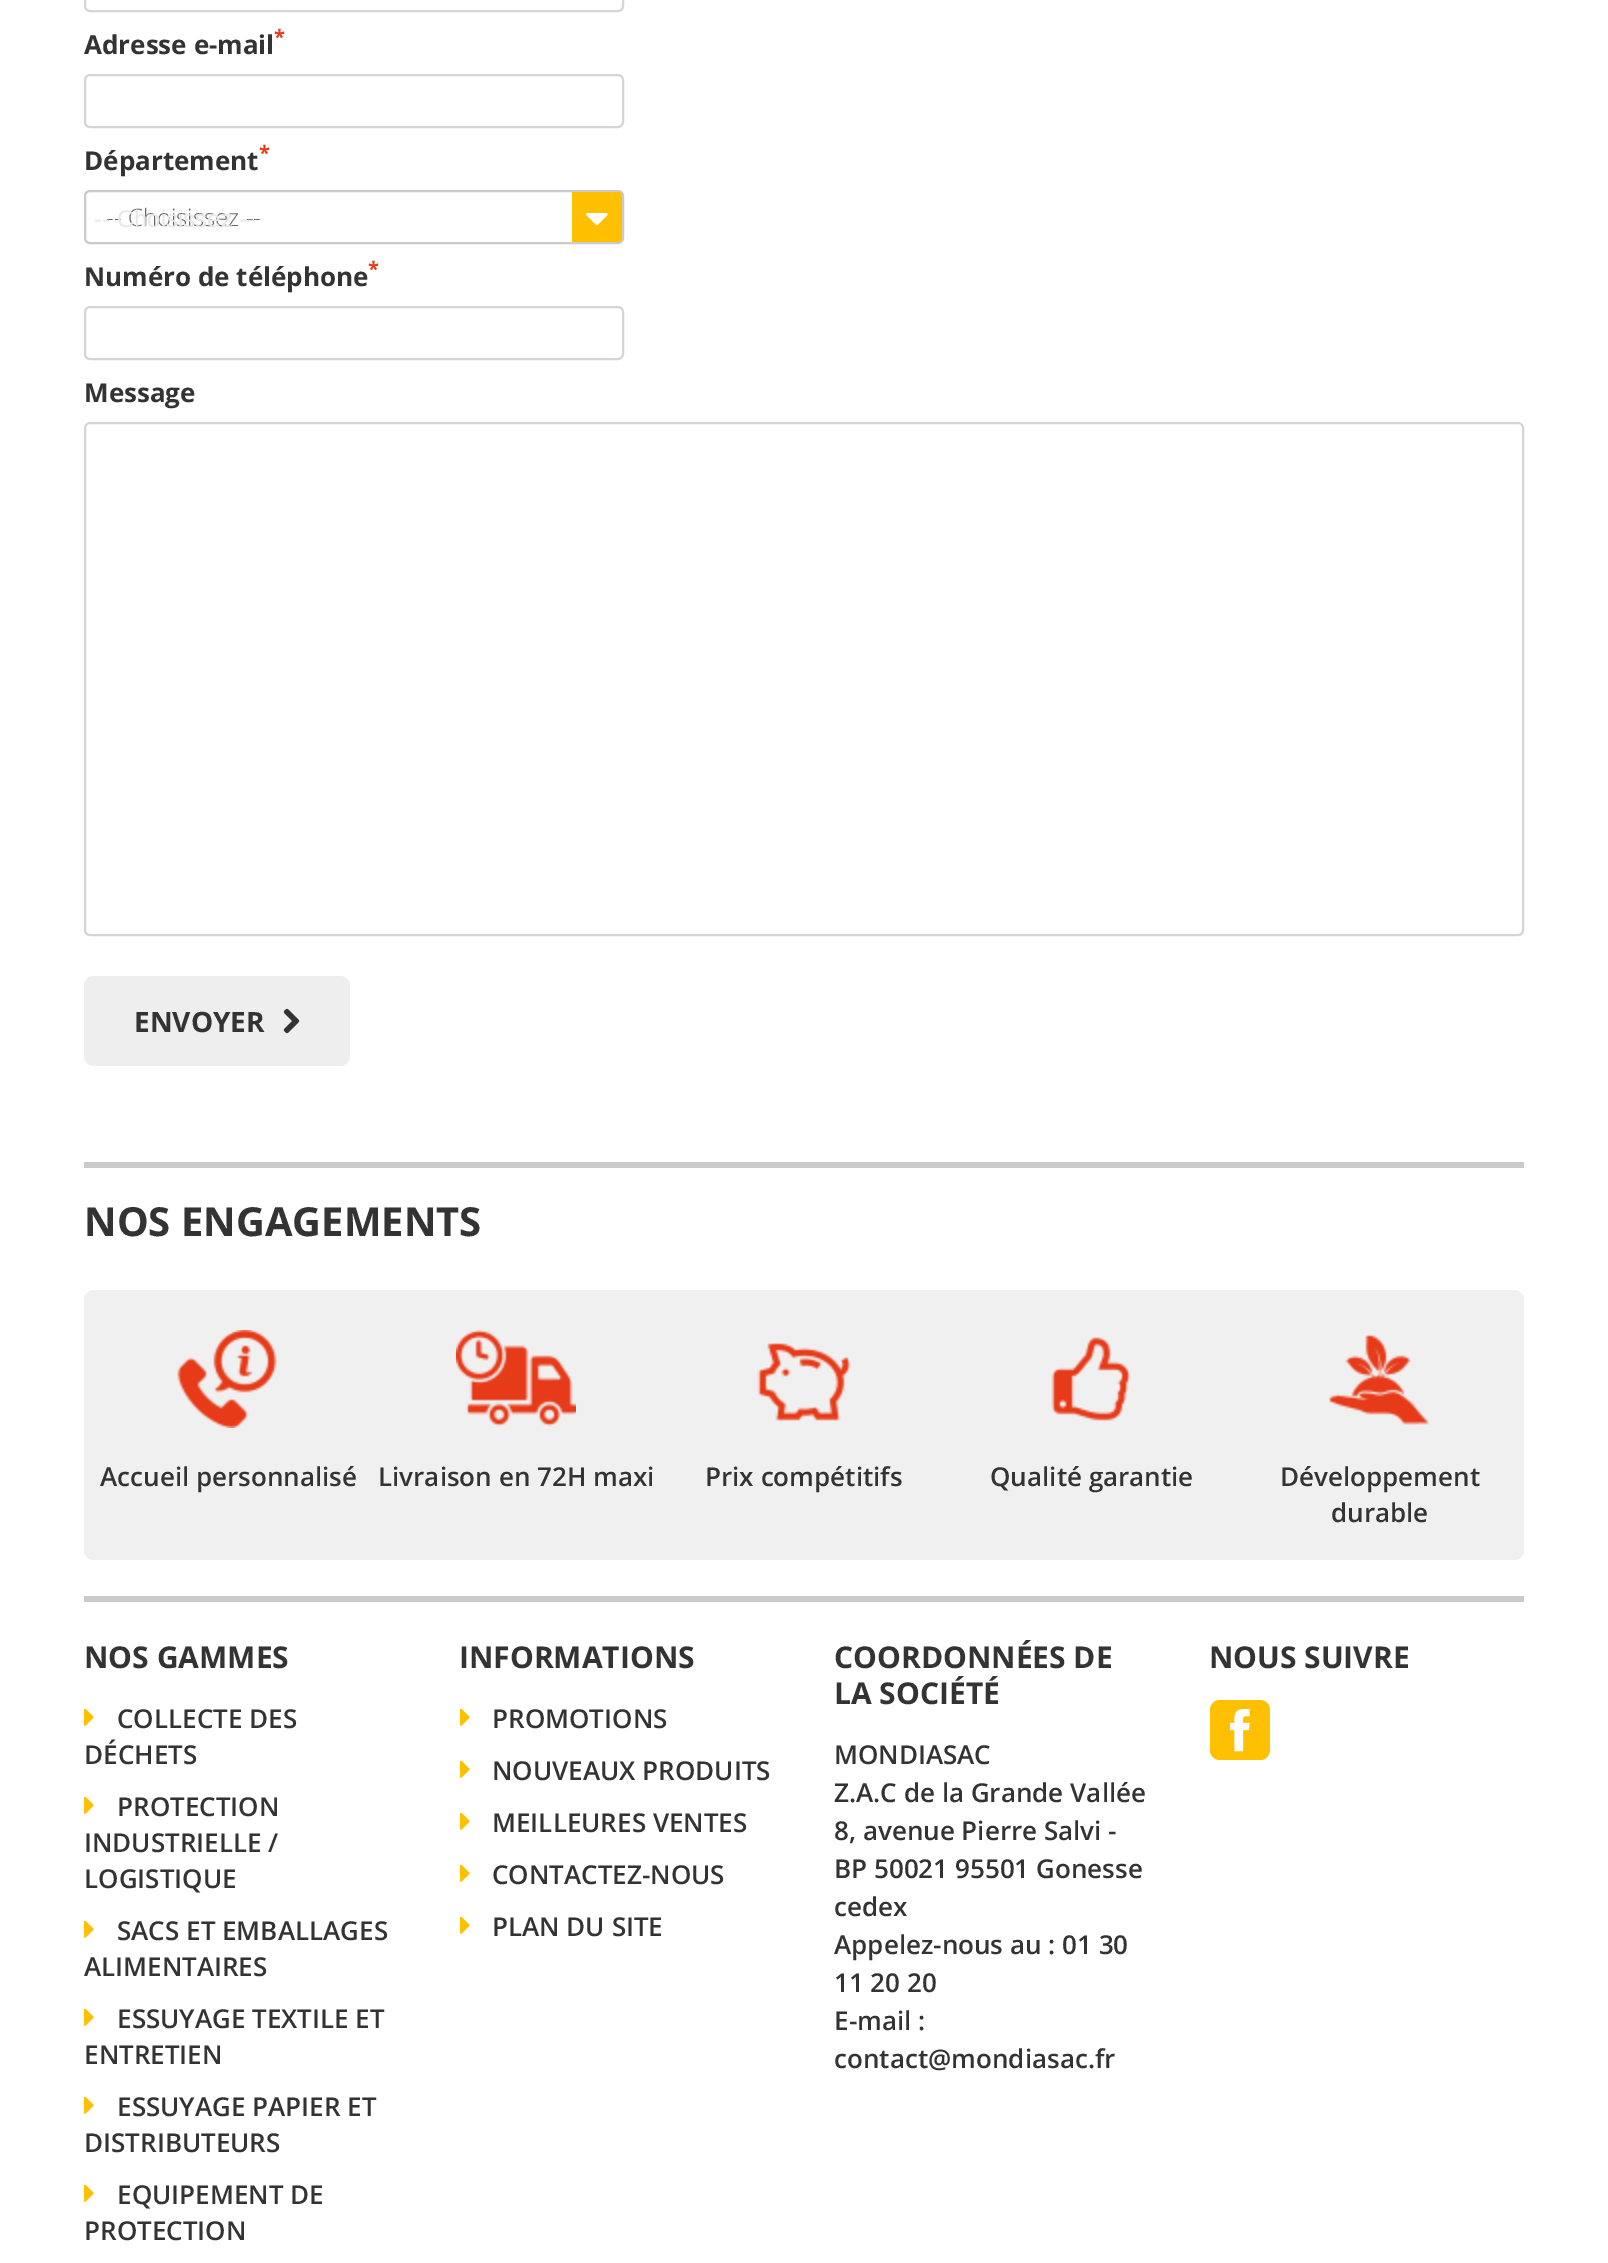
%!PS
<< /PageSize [1608 2263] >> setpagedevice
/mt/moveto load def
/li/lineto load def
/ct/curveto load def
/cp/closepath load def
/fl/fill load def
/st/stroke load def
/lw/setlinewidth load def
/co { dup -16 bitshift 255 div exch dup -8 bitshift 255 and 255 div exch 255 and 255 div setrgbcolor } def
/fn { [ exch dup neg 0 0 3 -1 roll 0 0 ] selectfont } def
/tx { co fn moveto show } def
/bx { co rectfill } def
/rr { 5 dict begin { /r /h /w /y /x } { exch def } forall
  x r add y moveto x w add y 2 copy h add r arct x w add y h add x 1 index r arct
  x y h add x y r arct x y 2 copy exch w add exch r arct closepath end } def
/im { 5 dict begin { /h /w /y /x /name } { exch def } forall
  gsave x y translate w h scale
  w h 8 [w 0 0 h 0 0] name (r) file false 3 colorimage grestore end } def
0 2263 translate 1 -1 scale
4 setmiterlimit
0 0 1608 2263 16#FFFFFF bx
16#D6D4D4 co
2 lw
85 -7 538 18 5 rr st
85 75 538 52 5 rr st
16#CACACA co
85 191 538 52 5 rr st
16#FFC001 co
572 192 mt 618 192 li 620 192 622 194 622 196 ct 622 238 li 622 240 620 242 618 242 ct 572 242 li cp fl
572 192 mt 572 242 li 618 242 li 620 242 622 240 622 238 ct 622 196 li 622 194 620 192 618 192 ct cp 574 194 mt 574 240 li 620 240 li 620 194 li cp eofill
(media/1.raw) 586 213 22 13 im
16#D6D4D4 co
85 307 538 52 5 rr st
85 423 1438 512 5 rr st
16#EEEEEE co
84 976 266 90 10 rr fl
(media/2.raw) 283 1008 17 26 im
84 1162 1440 6 16#CACACA bx
16#F0F0F0 co
84 1290 1440 270 10 rr fl
(media/3.raw) 177 1330 100 98 im
(media/4.raw) 456 1330 120 97 im
(media/5.raw) 757 1342 94 79 im
(media/6.raw) 1051 1337 80 84 im
(media/7.raw) 1329 1334 100 91 im
84 1596 1440 6 16#CACACA bx
(media/8.raw) 84 1708 10 18 im
(media/8.raw) 84 1796 10 18 im
(media/8.raw) 84 1920 10 18 im
(media/8.raw) 84 2008 10 18 im
(media/8.raw) 84 2096 10 18 im
(media/8.raw) 84 2184 10 18 im
(media/8.raw) 460 1708 10 18 im
(media/8.raw) 460 1760 10 18 im
(media/8.raw) 460 1812 10 18 im
(media/8.raw) 460 1864 10 18 im
(media/8.raw) 460 1916 10 18 im
16#FFC001 co
1210 1700 60 60 10 rr fl
(media/9.raw) 1230 1709 20 43 im
(Adresse e-mail) 84 54 /OpenSans-Bold 26 16#333333 tx
(*) 274 44 /OpenSans-Bold 20 16#E63A18 tx
(Département) 84 170 /OpenSans-Bold 26 16#333333 tx
(*) 259 160 /OpenSans-Bold 20 16#E63A18 tx
(-- Choisissez --) 106 226 /OpenSans-Light 24 16#666666 tx
(-- Choisissez --) 94 227 /LiberationSans-Regular 24 16#E7E7E7 tx
(Numéro de téléphone) 84 286 /OpenSans-Bold 26 16#333333 tx
(*) 368 276 /OpenSans-Bold 20 16#E63A18 tx
(Message) 84 402 /OpenSans-Bold 26 16#333333 tx
(ENVOYER) 134 1032 /OpenSans-Bold 28 16#333333 tx
(NOS ENGAGEMENTS) 84 1236 /OpenSans-Bold 40 16#333333 tx
(Accueil personnalisé) 100 1486 /OpenSans-SemiBold 26 16#333333 tx
(Livraison en 72H maxi) 378 1486 /OpenSans-SemiBold 26 16#333333 tx
(Prix compétitifs) 705 1486 /OpenSans-SemiBold 26 16#333333 tx
(Qualité garantie) 990 1486 /OpenSans-SemiBold 26 16#333333 tx
(Développement) 1280 1486 /OpenSans-SemiBold 26 16#333333 tx
(durable) 1331 1522 /OpenSans-SemiBold 26 16#333333 tx
(NOS GAMMES) 84 1668 /OpenSans-Bold 30 16#333333 tx
(COLLECTE DES) 117 1728 /OpenSans-SemiBold 26 16#333333 tx
(DÉCHETS) 84 1764 /OpenSans-SemiBold 26 16#333333 tx
(PROTECTION) 117 1816 /OpenSans-SemiBold 26 16#333333 tx
(INDUSTRIELLE /) 84 1852 /OpenSans-SemiBold 26 16#333333 tx
(LOGISTIQUE) 84 1888 /OpenSans-SemiBold 26 16#333333 tx
(SACS ET EMBALLAGES) 117 1940 /OpenSans-SemiBold 26 16#333333 tx
(ALIMENTAIRES) 84 1976 /OpenSans-SemiBold 26 16#333333 tx
(ESSUYAGE TEXTILE ET) 117 2028 /OpenSans-SemiBold 26 16#333333 tx
(ENTRETIEN) 84 2064 /OpenSans-SemiBold 26 16#333333 tx
(ESSUYAGE PAPIER ET) 117 2116 /OpenSans-SemiBold 26 16#333333 tx
(DISTRIBUTEURS) 84 2152 /OpenSans-SemiBold 26 16#333333 tx
(EQUIPEMENT DE) 117 2204 /OpenSans-SemiBold 26 16#333333 tx
(PROTECTION) 84 2240 /OpenSans-SemiBold 26 16#333333 tx
(INFORMATIONS) 459 1668 /OpenSans-Bold 30 16#333333 tx
(PROMOTIONS) 492 1728 /OpenSans-SemiBold 26 16#333333 tx
(NOUVEAUX PRODUITS) 492 1780 /OpenSans-SemiBold 26 16#333333 tx
(MEILLEURES VENTES) 492 1832 /OpenSans-SemiBold 26 16#333333 tx
(CONTACTEZ-NOUS) 492 1884 /OpenSans-SemiBold 26 16#333333 tx
(PLAN DU SITE) 492 1936 /OpenSans-SemiBold 26 16#333333 tx
(COORDONNÉES DE) 834 1668 /OpenSans-Bold 30 16#333333 tx
(LA SOCIÉTÉ) 834 1704 /OpenSans-Bold 30 16#333333 tx
(MONDIASAC) 834 1764 /OpenSans-SemiBold 26 16#333333 tx
(Z.A.C de la Grande Vallée) 834 1802 /OpenSans-SemiBold 26 16#333333 tx
(8, avenue Pierre Salvi -) 834 1840 /OpenSans-SemiBold 26 16#333333 tx
(BP 50021 95501 Gonesse) 834 1878 /OpenSans-SemiBold 26 16#333333 tx
(cedex) 834 1916 /OpenSans-SemiBold 26 16#333333 tx
(Appelez-nous au : 01 30) 834 1954 /OpenSans-SemiBold 26 16#333333 tx
(11 20 20) 834 1992 /OpenSans-SemiBold 26 16#333333 tx
(E-mail :) 834 2030 /OpenSans-SemiBold 26 16#333333 tx
(contact@mondiasac.fr) 834 2068 /OpenSans-SemiBold 26 16#333333 tx
(NOUS SUIVRE) 1209 1668 /OpenSans-Bold 30 16#333333 tx
showpage
